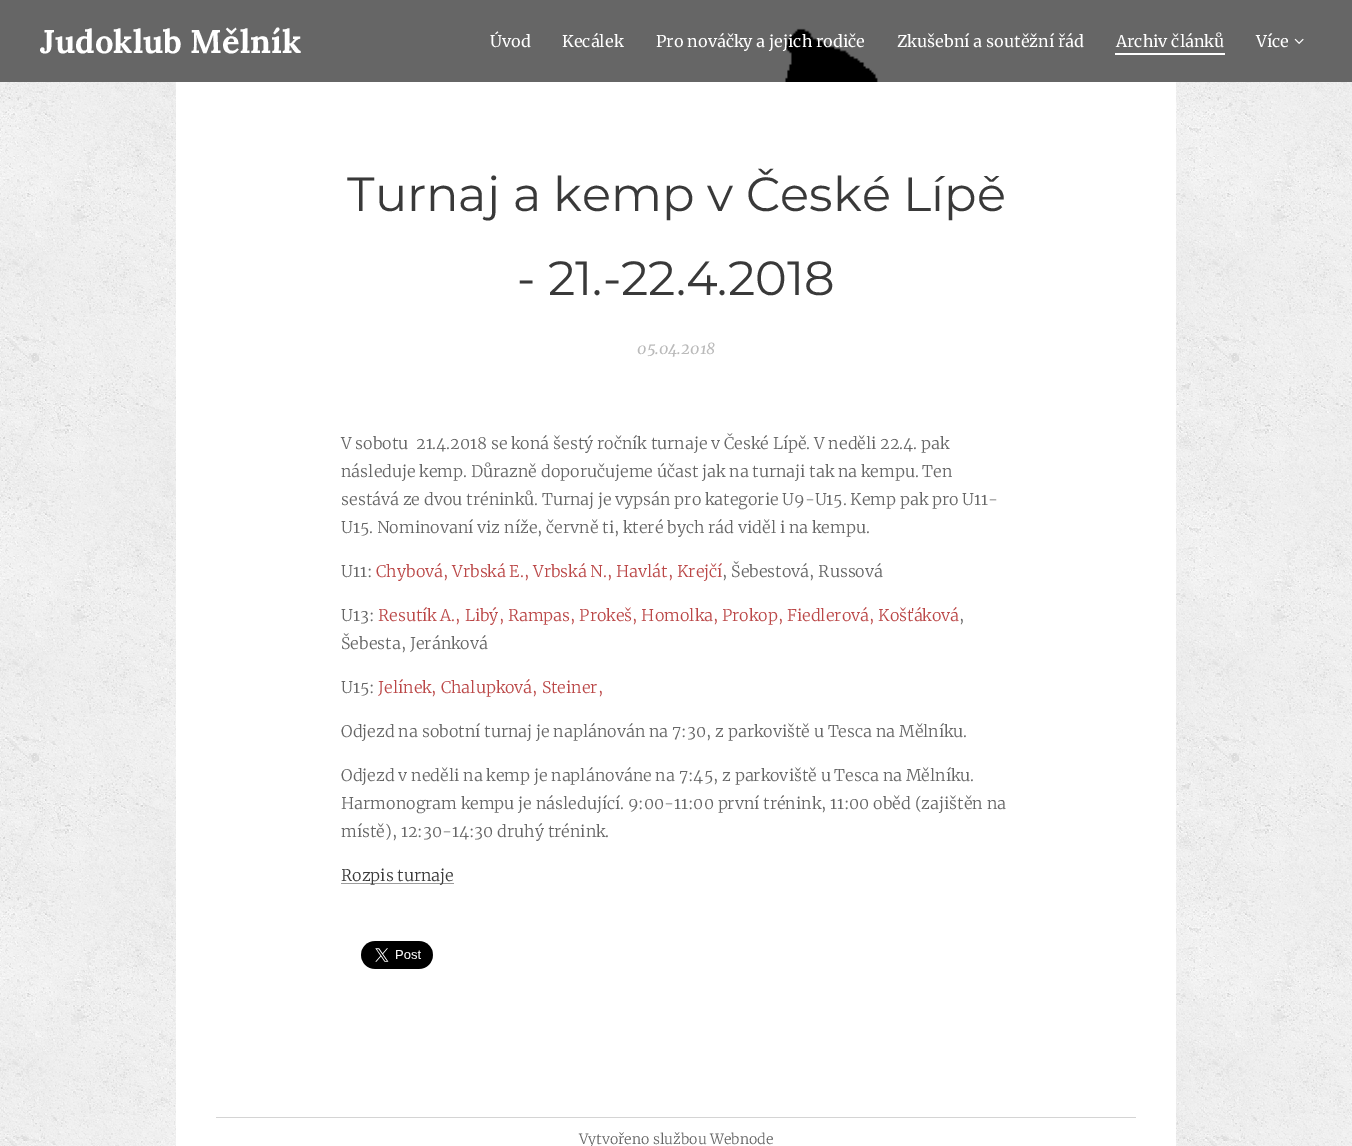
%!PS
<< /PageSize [1352 1146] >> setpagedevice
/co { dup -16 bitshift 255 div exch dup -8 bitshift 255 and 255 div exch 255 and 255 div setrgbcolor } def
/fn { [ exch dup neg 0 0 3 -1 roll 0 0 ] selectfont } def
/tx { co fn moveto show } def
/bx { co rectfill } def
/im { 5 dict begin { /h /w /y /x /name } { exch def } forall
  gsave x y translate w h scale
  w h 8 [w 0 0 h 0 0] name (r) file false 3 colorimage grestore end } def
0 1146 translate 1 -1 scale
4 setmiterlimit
0 0 1352 1146 16#FFFFFF bx
(media/1.raw) 0 0 1352 82 im
1115 53 110 2 16#FFFFFF bx
(media/2.raw) 1294 38 10 6 im
(media/3.raw) 0 82 1352 1064 im
176 82 1000 1035 16#FFFFFF bx
341 883 113 1 16#9C9C9C bx
(media/4.raw) 361 941 72 28 im
176 1117 1000 29 16#FFFFFF bx
216 1117 920 1 16#D4D4D4 bx
(Judoklub Mělník) 40 53 /Lora-Bold 32.75 16#FFFFFF tx
(Úvod) 490 47 /Merriweather-Regular 16 16#FFFFFF tx
(Kecálek) 562 47 /Merriweather-Regular 16 16#FFFFFF tx
(Pro nováčky a jejich rodiče) 656 47 /Merriweather-Regular 16 16#FFFFFF tx
(Zkušební a soutěžní řád) 897 47 /Merriweather-Regular 16 16#FFFFFF tx
(Archiv článků) 1116 47 /Merriweather-Regular 16 16#FFFFFF tx
(Více) 1256 47 /Merriweather-Regular 16 16#FFFFFF tx
(Turnaj a kemp v České Lípě) 347 211 /Montserrat-Regular 48 16#393939 tx
(- 21.-22.4.2018) 517 295 /Montserrat-Regular 48 16#393939 tx
(05.04.2018) 637 354 /Merriweather-Italic 15.25 16#BABABA tx
(V sobotu  21.4.2018 se koná šestý ročník turnaje v České Lípě. V neděli 22.4. pak) 341 449 /Merriweather-Light 16 16#666666 tx
(následuje kemp. Důrazně doporučujeme účast jak na turnaji tak na kempu. Ten) 341 477 /Merriweather-Light 16 16#666666 tx
(sestává ze dvou tréninků. Turnaj je vypsán pro kategorie U9-U15. Kemp pak pro U11-) 341 505 /Merriweather-Light 16 16#666666 tx
(U15. Nominovaní viz níže, červně ti, které bych rád viděl i na kempu.) 341 533 /Merriweather-Light 16 16#666666 tx
(U11:) 341 577 /Merriweather-Light 16 16#666666 tx
(Chybová, Vrbská E., Vrbská N., Havlát, Krejčí) 376 577 /Merriweather-Light 16 16#BB4747 tx
(, Šebestová, Russová) 722 577 /Merriweather-Light 16 16#666666 tx
(U13:) 341 621 /Merriweather-Light 16 16#666666 tx
(Resutík A., Libý, Rampas, Prokeš, Homolka, Prokop, Fiedlerová, Košťáková) 378 621 /Merriweather-Light 16 16#BB4747 tx
(,) 959 621 /Merriweather-Light 16 16#666666 tx
(Šebesta, Jeránková) 341 649 /Merriweather-Light 16 16#666666 tx
(U15:) 341 693 /Merriweather-Light 16 16#666666 tx
(Jelínek, Chalupková, Steiner,) 378 693 /Merriweather-Light 16 16#BB4747 tx
(Odjezd na sobotní turnaj je naplánován na 7:30, z parkoviště u Tesca na Mělníku.) 341 737 /Merriweather-Light 16 16#666666 tx
(Odjezd v neděli na kemp je naplánováne na 7:45, z parkoviště u Tesca na Mělníku.) 341 781 /Merriweather-Light 16 16#666666 tx
(Harmonogram kempu je následující. 9:00-11:00 první trénink, 11:00 oběd \(zajištěn na) 341 809 /Merriweather-Light 16 16#666666 tx
(místě\), 12:30-14:30 druhý trénink.) 341 837 /Merriweather-Light 16 16#666666 tx
(Rozpis turnaje) 341 881 /Merriweather-Light 16 16#393939 tx
(Vytvořeno službou Webnode) 579 1144 /Merriweather-Light 14 16#666666 tx
showpage
